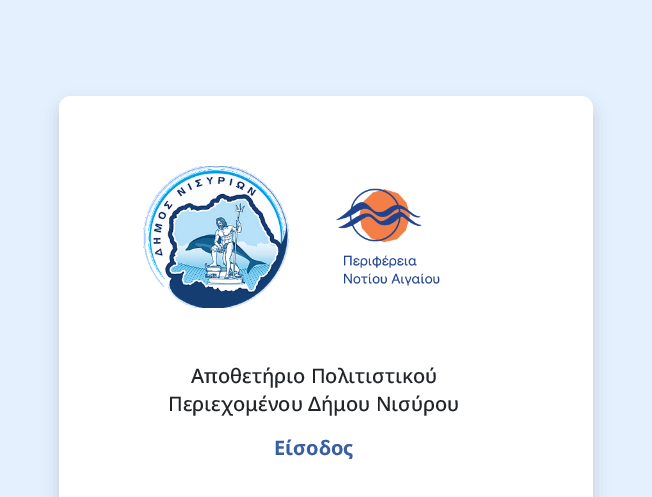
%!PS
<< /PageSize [652 497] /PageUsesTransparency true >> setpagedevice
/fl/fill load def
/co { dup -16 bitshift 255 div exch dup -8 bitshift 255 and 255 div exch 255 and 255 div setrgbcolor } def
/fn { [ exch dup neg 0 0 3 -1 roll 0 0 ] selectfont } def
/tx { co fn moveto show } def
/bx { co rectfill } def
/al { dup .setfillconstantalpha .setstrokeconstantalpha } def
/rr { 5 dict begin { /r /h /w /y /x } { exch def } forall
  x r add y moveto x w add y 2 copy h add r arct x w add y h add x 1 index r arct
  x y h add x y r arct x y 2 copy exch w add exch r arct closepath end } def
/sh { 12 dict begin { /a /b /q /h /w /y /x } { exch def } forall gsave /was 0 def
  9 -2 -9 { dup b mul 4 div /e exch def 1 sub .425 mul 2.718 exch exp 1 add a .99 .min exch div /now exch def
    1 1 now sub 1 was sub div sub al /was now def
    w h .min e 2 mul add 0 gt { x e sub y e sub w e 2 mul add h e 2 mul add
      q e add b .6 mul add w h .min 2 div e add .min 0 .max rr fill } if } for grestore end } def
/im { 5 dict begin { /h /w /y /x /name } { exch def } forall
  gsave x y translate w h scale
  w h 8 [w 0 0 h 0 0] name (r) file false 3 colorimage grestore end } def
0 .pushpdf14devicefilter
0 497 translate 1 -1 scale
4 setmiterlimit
0 0 652 497 16#E5F0FF bx
16#000000 co
59 104 534 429 12 8 .15 sh
16#FFFFFF co
59 96 534 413 12 rr fl
(media/1.raw) 143 166 147 142 im
(media/2.raw) 336 188 104 98 im
(Αποθετήριο Πολιτιστικού) 191 383 /NotoSans-Medium 20 16#212529 tx
(Περιεχομένου Δήμου Νισύρου) 168 411 /NotoSans-Medium 20 16#212529 tx
(Είσοδος) 274 455 /NotoSans-Bold 20 16#385EA3 tx
.poppdf14devicefilter showpage
